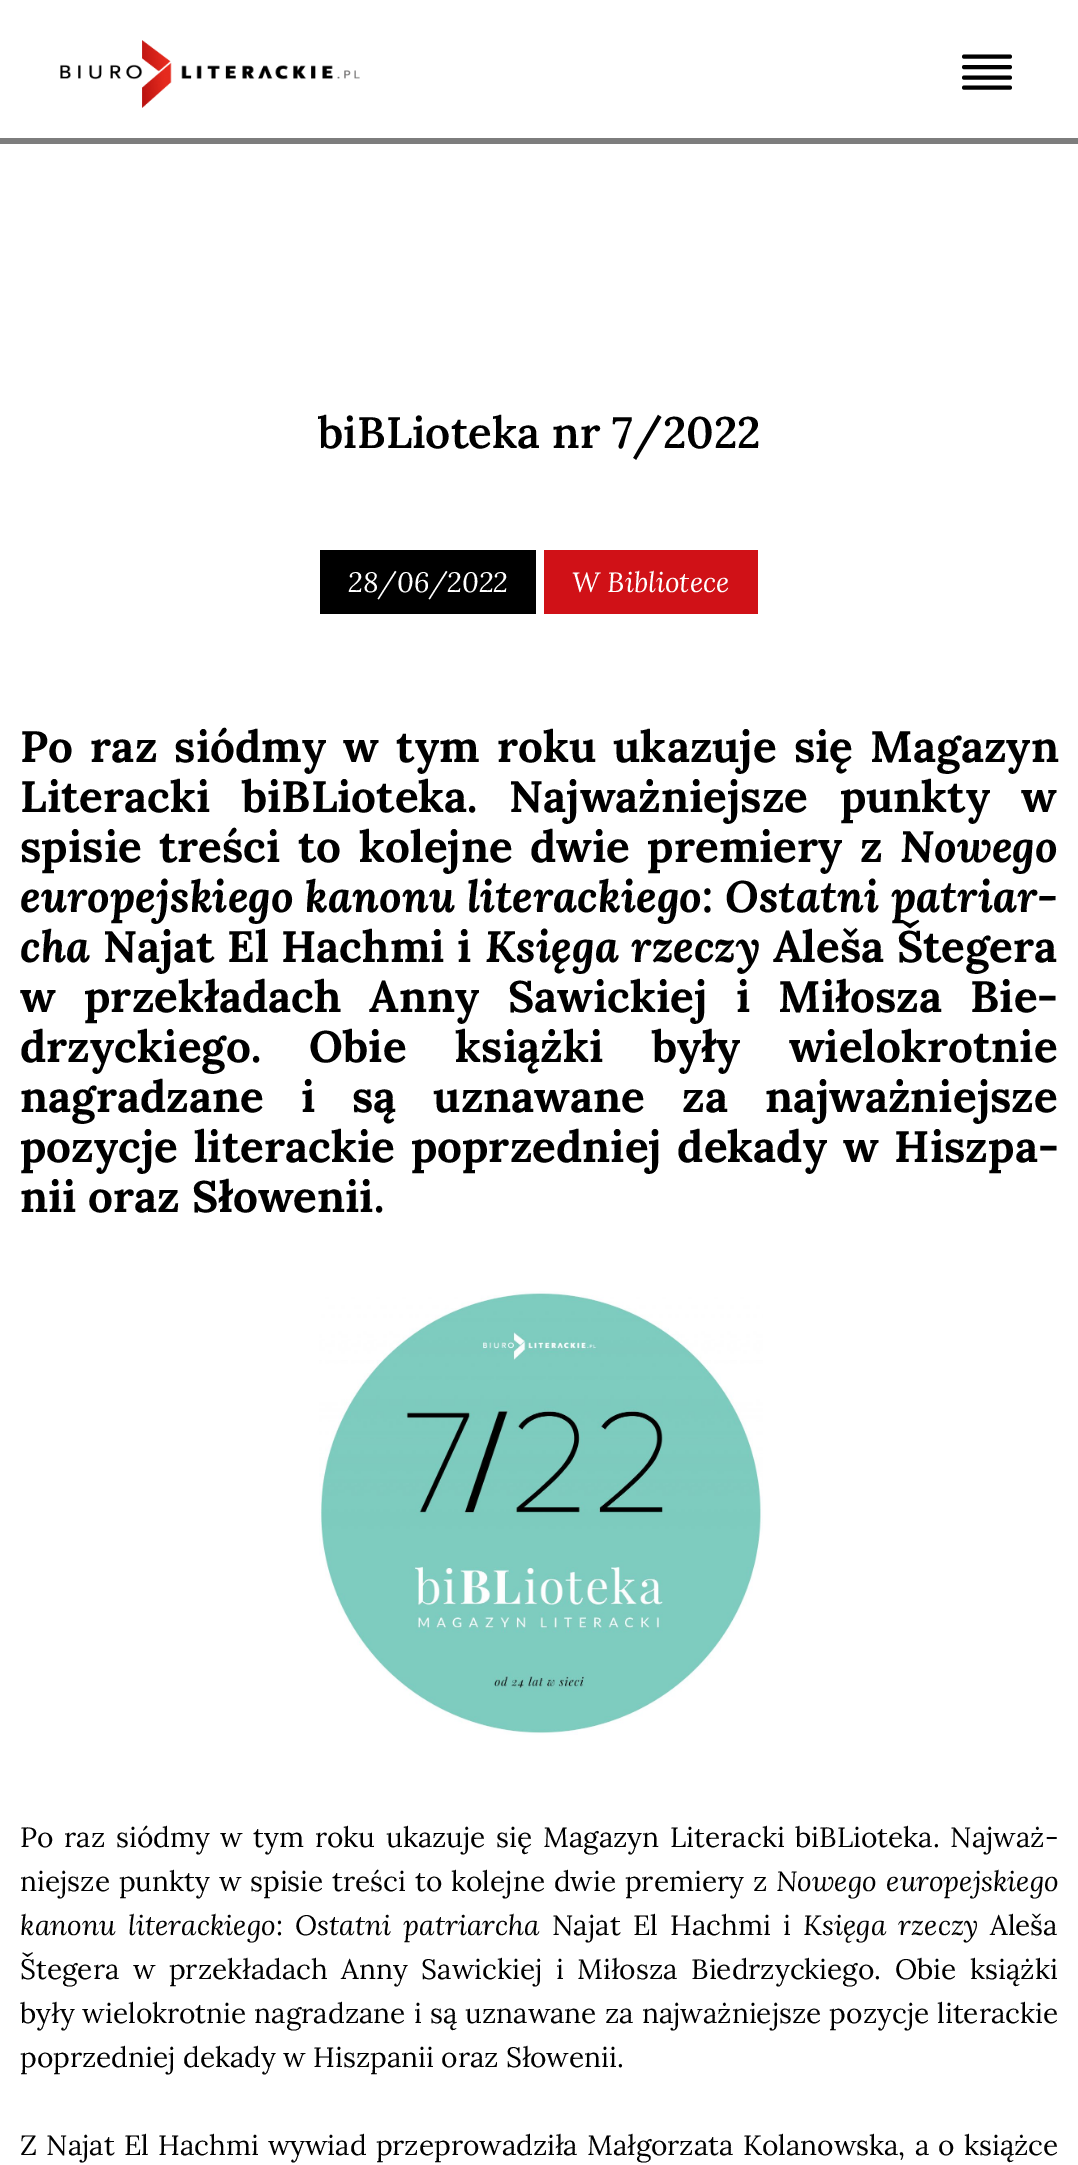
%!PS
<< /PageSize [1078 2165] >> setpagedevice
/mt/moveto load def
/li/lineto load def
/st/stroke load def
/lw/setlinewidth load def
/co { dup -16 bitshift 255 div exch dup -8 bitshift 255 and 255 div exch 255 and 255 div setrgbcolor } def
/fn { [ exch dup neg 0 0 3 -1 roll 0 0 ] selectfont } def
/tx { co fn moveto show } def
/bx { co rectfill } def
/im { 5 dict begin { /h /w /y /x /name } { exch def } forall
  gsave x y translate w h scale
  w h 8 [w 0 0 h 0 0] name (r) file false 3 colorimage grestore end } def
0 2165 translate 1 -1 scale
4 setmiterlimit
0 0 1078 2165 16#FFFFFF bx
(media/1.raw) 60 40 300 68 im
16#000000 co
4 lw
1 setlinecap
1 setlinejoin
1010 67 mt 964 67 li 1010 56.5 mt 964 56.5 li 1010 77.5 mt 964 77.5 li 1010 87.5 mt 964 87.5 li st
0 138 1078 6 16#7D7D7D bx
320 550 216 64 16#000000 bx
544 550 214 64 16#D01117 bx
(media/2.raw) 319 1291 444 444 im
(biBLioteka nr 7/2022) 318 448 /Lora-SemiBold 44 16#000000 tx
(28/06/2022) 348 592 /Lora-Italic 28 16#FFFFFF tx
(W Bibliotece) 572 592 /Lora-Italic 28 16#FFFFFF tx
/Lora-Bold 44 fn
16#000000 co
20 762 mt 5.75 0 32 (Po raz siódmy w tym roku ukazuje się Magazyn) widthshow
20 812 mt 20 0 32 (Literacki biBLioteka. Najważniejsze punkty w) widthshow
20 862 mt 6 0 32 (spisie treści to kolejne dwie premiery z) widthshow
(Nowego) 900 862 /Lora-BoldItalic 44 16#000000 tx
(europejskiego kanonu literackiego) 20 912 /Lora-BoldItalic 44 16#000000 tx
(:) 702 912 /Lora-Bold 44 16#000000 tx
(Ostatni patriar-) 725 912 /Lora-BoldItalic 44 16#000000 tx
(cha) 20 962 /Lora-BoldItalic 44 16#000000 tx
/Lora-Bold 44 fn
103 962 mt 1 0 32 (Najat El Hachmi i) widthshow
/Lora-BoldItalic 44 fn
485 962 mt 1 0 32 (Księga rzeczy) widthshow
/Lora-Bold 44 fn
773 962 mt 1 0 32 (Aleša Štegera) widthshow
20 1012 mt 16.75 0 32 (w przekładach Anny Sawickiej i Miłosza Bie-) widthshow
20 1062 mt 37 0 32 (drzyckiego. Obie książki były wielokrotnie) widthshow
20 1112 mt 25.5 0 32 (nagradzane i są uznawane za najważniejsze) widthshow
20 1162 mt 4.25 0 32 (pozycje literackie poprzedniej dekady w Hiszpa-) widthshow
(nii oraz Słowenii.) 20 1212 /Lora-Bold 44 16#000000 tx
/Lora-Regular 28 fn
20 1847 mt 3.4 0 32 (Po raz siódmy w tym roku ukazuje się Magazyn Literacki biBLioteka. Najważ-) widthshow
20 1891 mt 1.5 0 32 (niejsze punkty w spisie treści to kolejne dwie premiery z) widthshow
/Lora-Italic 28 fn
776 1891 mt 2 0 32 (Nowego europejskiego) widthshow
20 1935 mt 5 0 32 (kanonu literackiego) widthshow
(:) 276 1935 /Lora-Regular 28 16#000000 tx
/Lora-Italic 28 fn
295 1935 mt 5 0 32 (Ostatni patriarcha) widthshow
/Lora-Regular 28 fn
552 1935 mt 5 0 32 (Najat El Hachmi i) widthshow
/Lora-Italic 28 fn
803 1935 mt 5 0 32 (Księga rzeczy) widthshow
(Aleša) 990 1935 /Lora-Regular 28 16#000000 tx
20 1979 mt 6.25 0 32 (Štegera w przekładach Anny Sawickiej i Miłosza Biedrzyckiego. Obie książki) widthshow
20 2023 mt .75 0 32 (były wielokrotnie nagradzane i są uznawane za najważniejsze pozycje literackie) widthshow
(poprzedniej dekady w Hiszpanii oraz Słowenii.) 20 2067 /Lora-Regular 28 16#000000 tx
20 2155 mt 1.75 0 32 (Z Najat El Hachmi wywiad przeprowadziła Małgorzata Kolanowska, a o książce) widthshow
showpage
